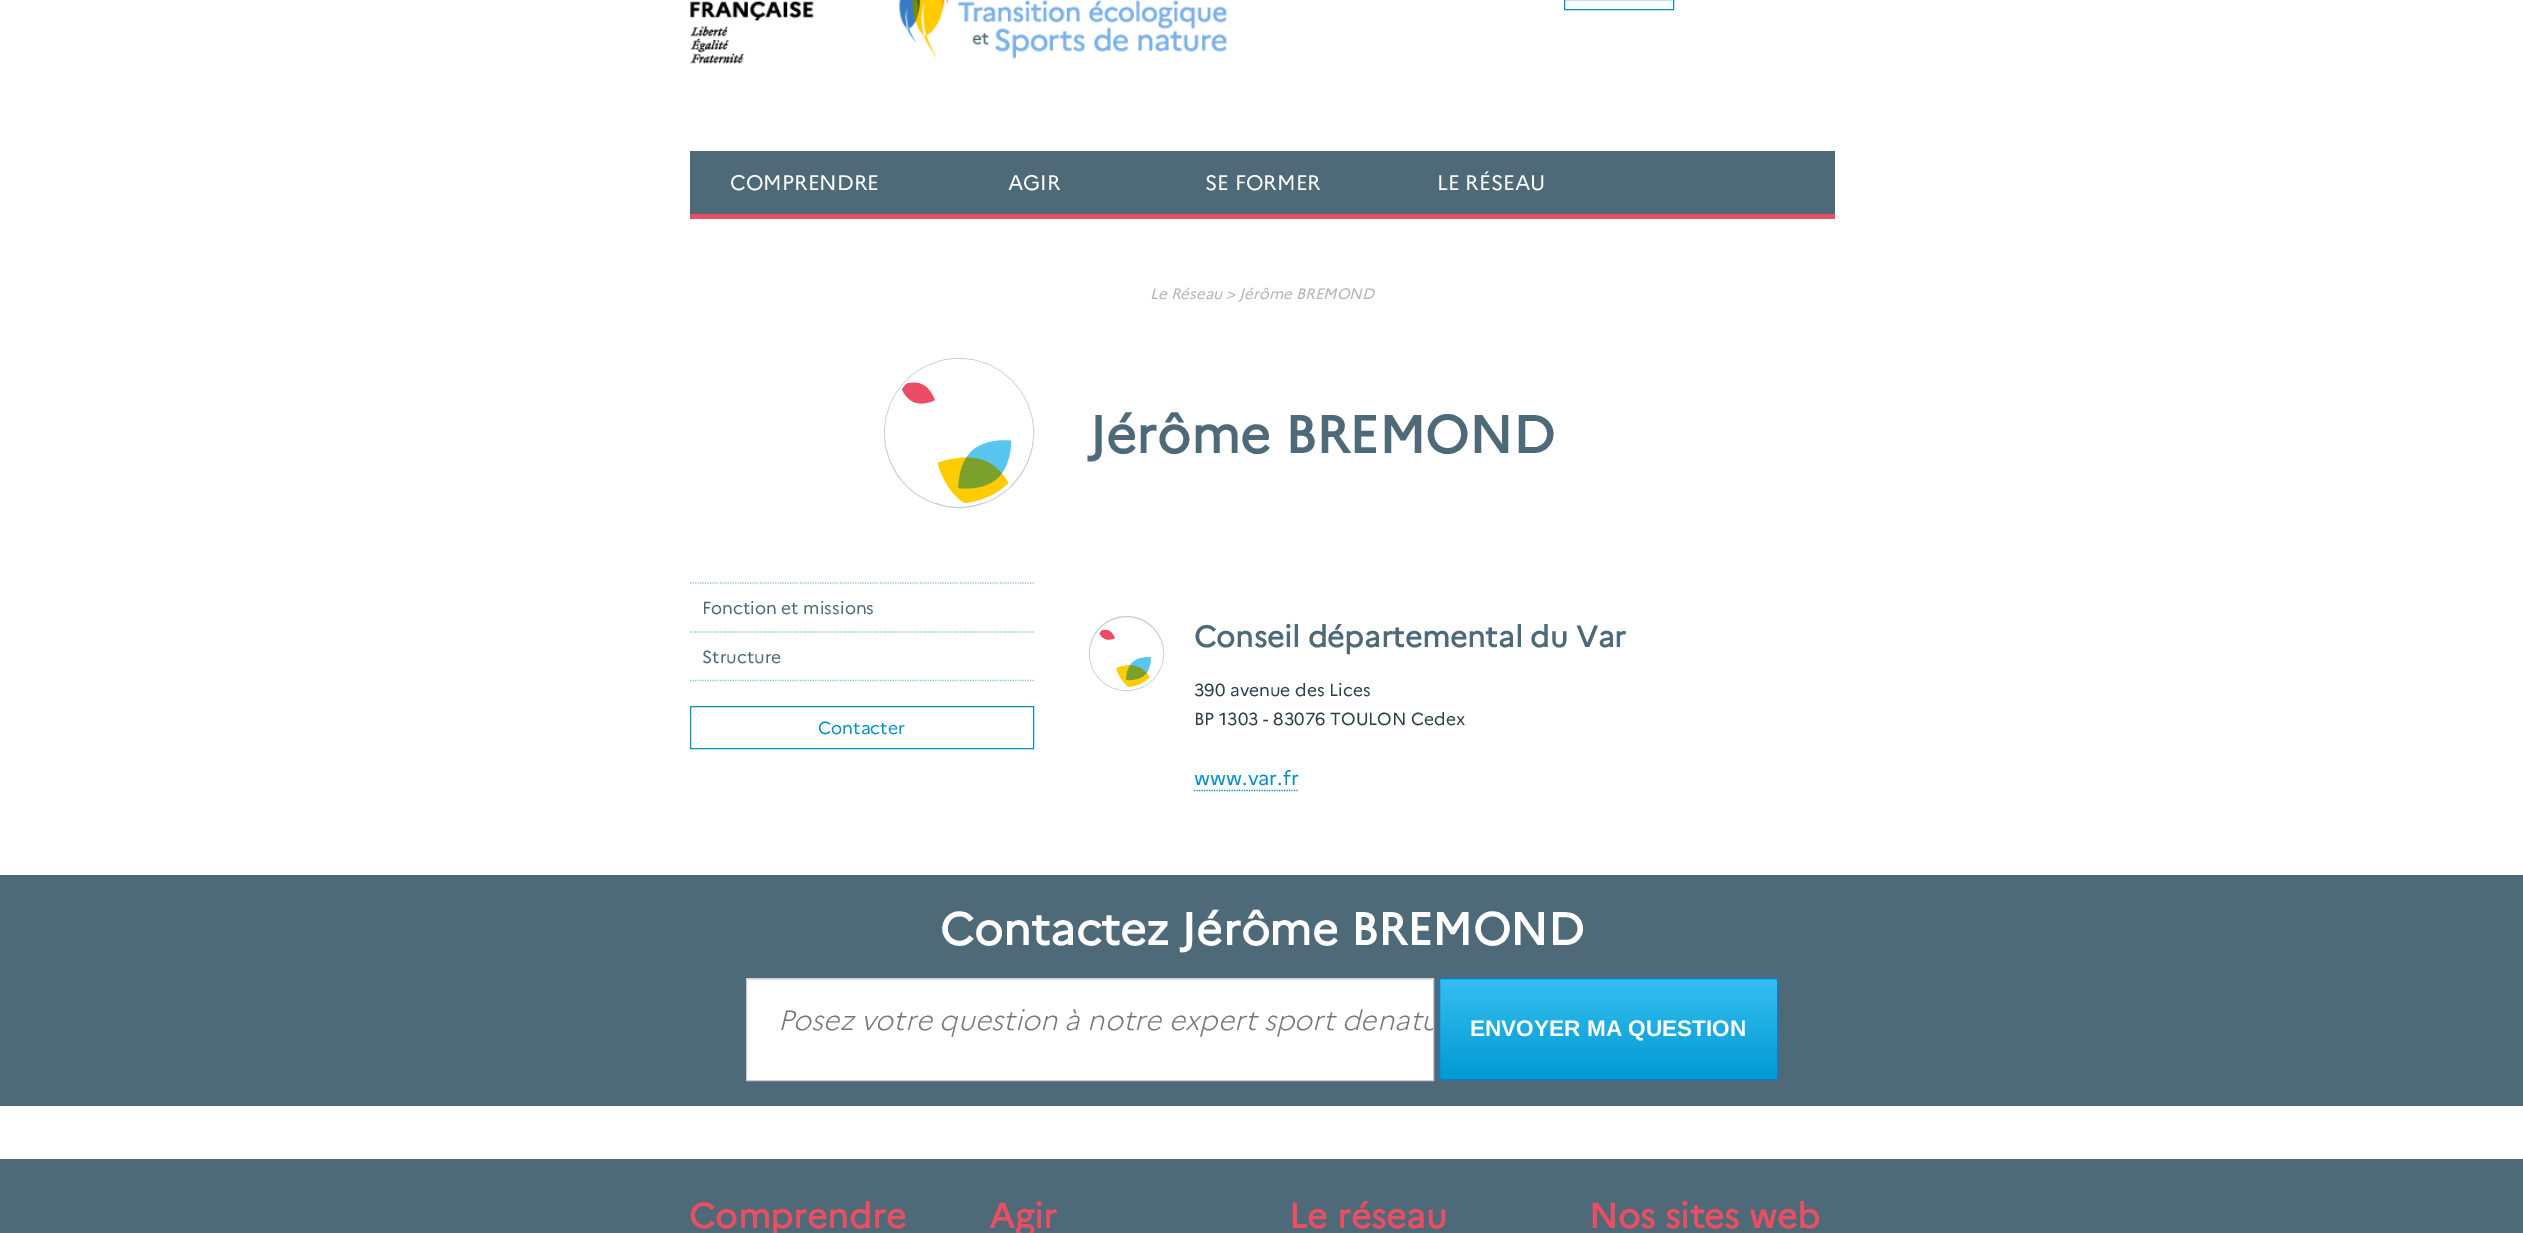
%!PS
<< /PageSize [2523 1233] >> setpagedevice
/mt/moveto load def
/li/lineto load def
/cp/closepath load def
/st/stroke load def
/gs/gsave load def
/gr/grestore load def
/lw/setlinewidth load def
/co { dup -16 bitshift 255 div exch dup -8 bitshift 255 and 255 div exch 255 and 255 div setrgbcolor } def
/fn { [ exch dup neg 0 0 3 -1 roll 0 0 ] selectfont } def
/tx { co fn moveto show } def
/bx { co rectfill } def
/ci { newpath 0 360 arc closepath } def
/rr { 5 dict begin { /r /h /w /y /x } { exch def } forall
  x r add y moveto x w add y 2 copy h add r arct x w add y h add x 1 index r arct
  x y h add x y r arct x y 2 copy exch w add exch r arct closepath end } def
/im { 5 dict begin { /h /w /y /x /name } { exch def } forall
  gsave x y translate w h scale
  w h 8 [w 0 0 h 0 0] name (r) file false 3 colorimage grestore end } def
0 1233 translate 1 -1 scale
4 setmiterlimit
0 0 2523 1233 16#FFFFFF bx
16#008FCB co
1564.5 -.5 109 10 rectstroke
(media/1.raw) 690 0 538 64 im
690 151 1145 63 16#4E6A78 bx
690 214 1145 5 16#EA4E63 bx
16#BFCFD7 co
959 433 74.5 ci st
16#FFFFFF co
3 lw
886.5 360.5 145 144 72 rr st
(media/2.raw) 901 382 111 121 im
16#93C3DA co
1.2 lw
[1.25 1.25] 0 setdash
690 583 mt 1034 583 li st
690 632 mt 1034 632 li st
690 680.5 mt 1034 680.5 li st
16#008FCB co
1 lw
[] 0 setdash
690.5 706.5 343 42 rectstroke
16#BFCFD7 co
1126.5 653.5 37 ci st
16#FFFFFF co
3 lw
1091.5 619.5 70 69 34.5 rr st
(media/3.raw) 1099 629 52 58 im
16#008FCB co
1.2 lw
[1.25 1.25] 0 setdash
1194 790.5 mt 1299 790.5 li st
0 875 2523 231 16#4E6A78 bx
747 979 686 101 16#FFFFFF bx
748 979 685 1 16#ECECEC bx
16#CCCCCC co
1 lw
[] 0 setdash
746.5 978.5 687 102 rectstroke
gs
1439 978 339 102 2.5 rr clip newpath
gs 1439 979 mt 1778 979 li 1778 1079 li 1439 1079 li cp clip newpath
<< /ShadingType 2 /ColorSpace /DeviceRGB /Coords [1608 979 1608 1079] /Extend [true true] /Function << /FunctionType 3 /Domain [0 1] /Functions [<< /FunctionType 2 /Domain [0 1] /C0 [.2 .741 .937] /C1 [.2 .741 .937] /N 1 >> << /FunctionType 2 /Domain [0 1] /C0 [.2 .741 .937] /C1 [.004 .604 .824] /N 1 >>] /Bounds [.05] /Encode [0 1 0 1] >> >> shfill gr
gr
16#057FD0 co
1439.5 978.5 338 101 2 rr st
0 1159 2523 74 16#4E6A78 bx
(COMPRENDRE) 730 190 /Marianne-Regular 21 16#FFFFFF tx
(AGIR) 1008 190 /Marianne-Regular 21 16#FFFFFF tx
(SE FORMER) 1205 190 /Marianne-Regular 21 16#FFFFFF tx
(LE RÉSEAU) 1437 190 /Marianne-Regular 21 16#FFFFFF tx
(Le Réseau > Jérôme BREMOND) 1150 299 /Marianne-Italic 15.1 16#B3B3B3 tx
(Jérôme BREMOND) 1089 453 /Marianne-Bold 52.25 16#4E6A78 tx
(Fonction et missions) 702 614 /Marianne-Regular 17.4 16#4E6A78 tx
(Structure) 702 663 /Marianne-Regular 17.4 16#4E6A78 tx
(Contacter) 818 734 /Marianne-Regular 17.5 16#008FCB tx
(Conseil départemental du Var) 1194 647 /Marianne-Bold 29.6 16#4E6A78 tx
(390 avenue des Lices) 1194 696 /Marianne-Regular 17.4 16#2B3F47 tx
(BP 1303 - 83076 TOULON Cedex) 1194 725 /Marianne-Regular 17.4 16#2B3F47 tx
(www.var.fr) 1194 785 /Marianne-Regular 20 16#008FCB tx
(Contactez Jérôme BREMOND) 940 945 /Marianne-Bold 45.25 16#FFFFFF tx
(Posez votre question à notre expert sport de) 778 1030 /Marianne-LightItalic 27.8 16#777777 tx
gs
748 979 685 101 rectclip
(natu) 1377 1030 /Marianne-LightItalic 27.8 16#777777 tx
gr
(ENVOYER MA QUESTION) 1470 1036 /LiberationSans-Bold 22.6 16#FFFFFF tx
(Comprendre) 689 1228 /Marianne-Bold 34.75 16#EA4E63 tx
(Agir) 989 1228 /Marianne-Bold 34.75 16#EA4E63 tx
(Le réseau) 1289 1228 /Marianne-Bold 34.75 16#EA4E63 tx
(Nos sites web) 1589 1228 /Marianne-Bold 34.75 16#EA4E63 tx
showpage
